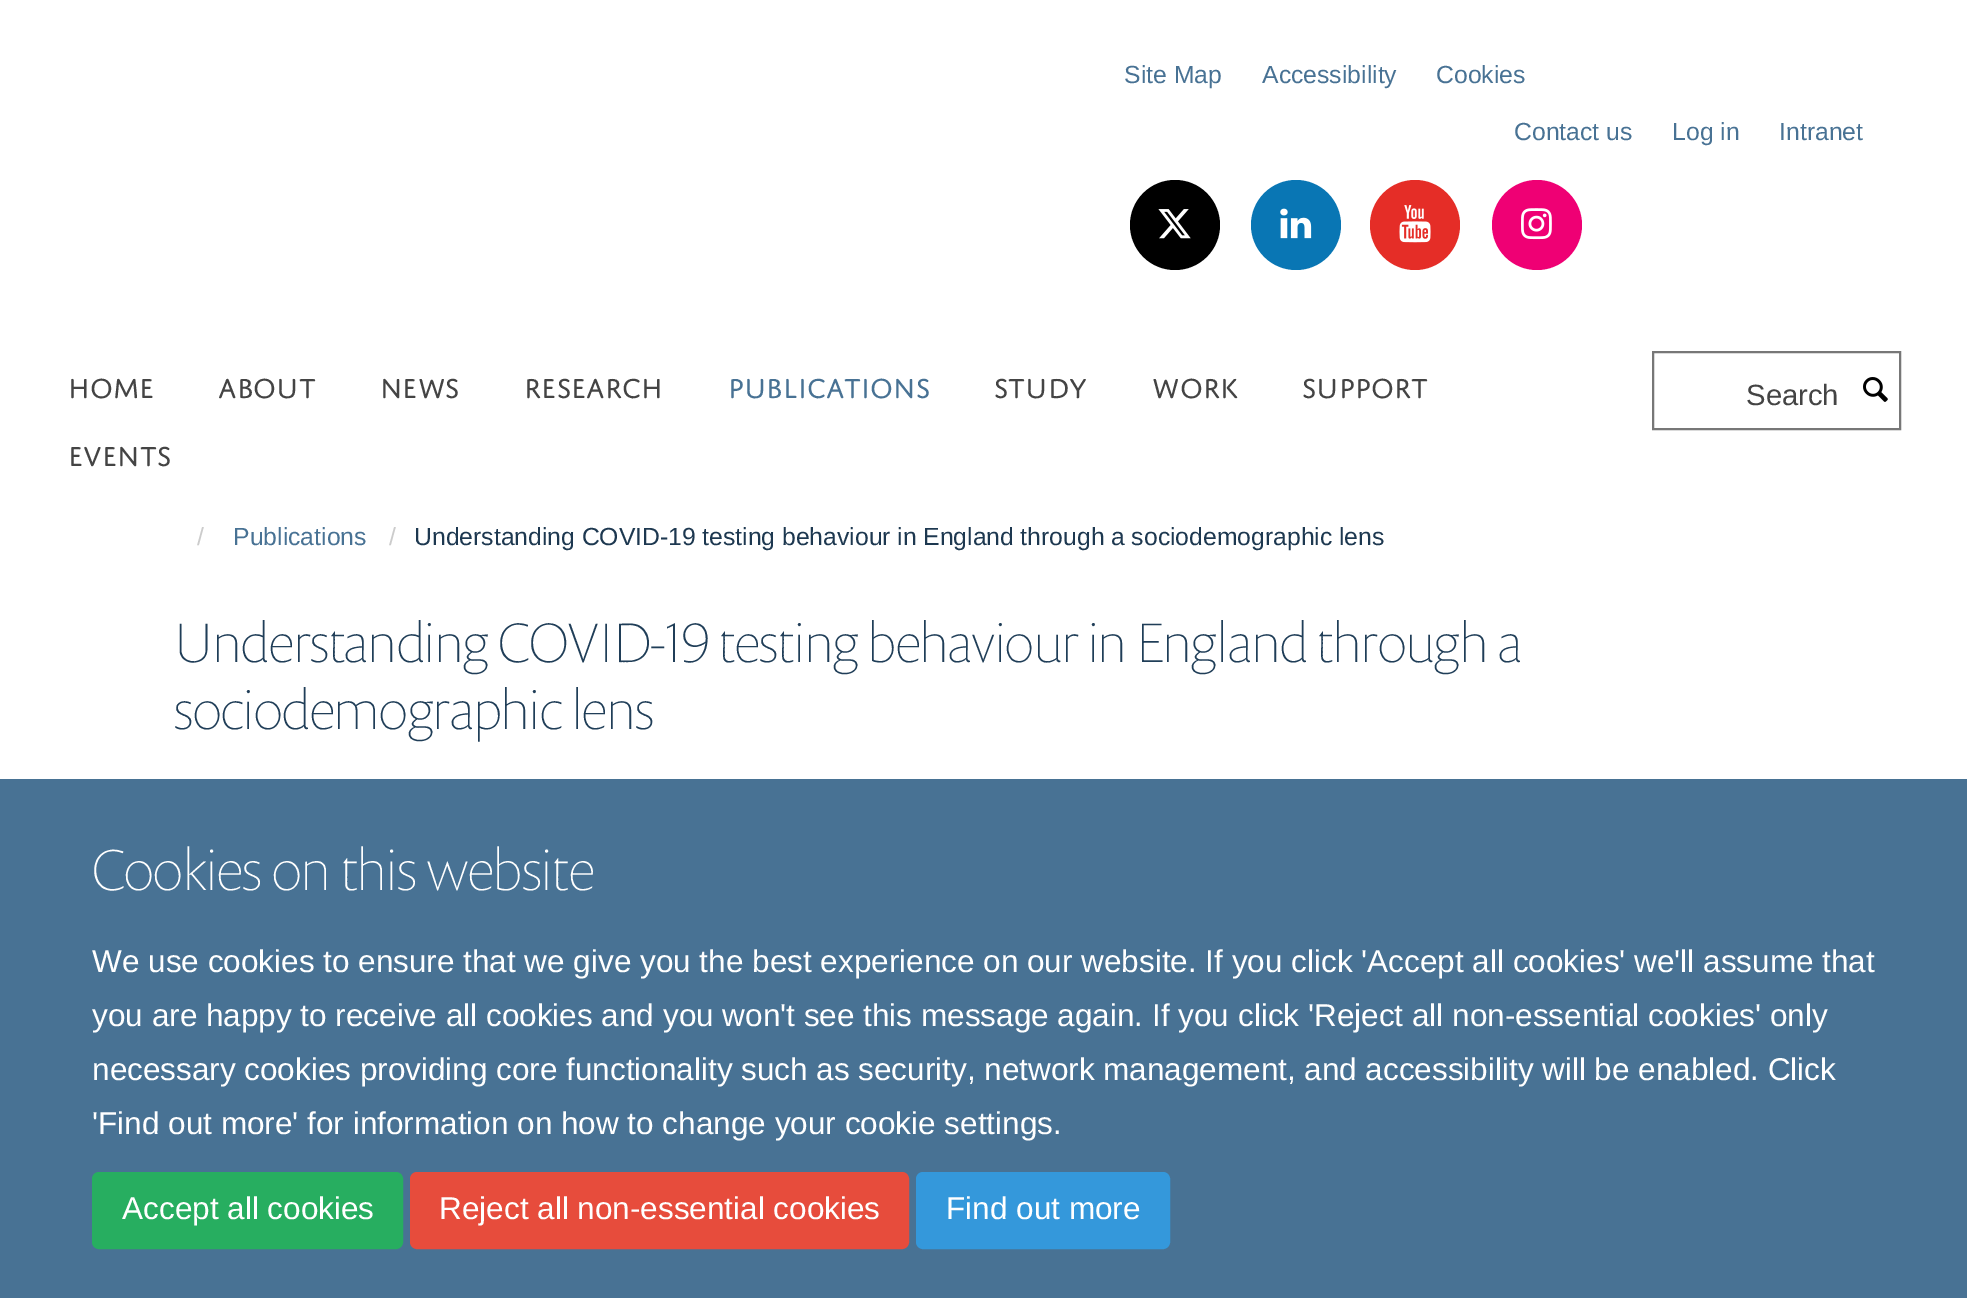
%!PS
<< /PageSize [1967 1298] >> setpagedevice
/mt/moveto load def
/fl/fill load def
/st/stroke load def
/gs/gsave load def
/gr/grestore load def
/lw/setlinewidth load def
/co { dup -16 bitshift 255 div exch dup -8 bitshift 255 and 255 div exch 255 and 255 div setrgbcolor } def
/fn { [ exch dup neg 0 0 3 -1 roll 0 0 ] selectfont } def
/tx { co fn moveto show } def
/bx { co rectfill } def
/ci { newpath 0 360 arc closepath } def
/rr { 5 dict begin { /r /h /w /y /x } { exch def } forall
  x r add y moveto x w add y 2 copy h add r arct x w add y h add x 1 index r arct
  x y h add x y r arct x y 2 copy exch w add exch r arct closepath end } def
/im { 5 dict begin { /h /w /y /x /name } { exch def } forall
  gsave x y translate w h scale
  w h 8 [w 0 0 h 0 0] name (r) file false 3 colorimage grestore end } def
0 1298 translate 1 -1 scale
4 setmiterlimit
0 0 1967 1298 16#FFFFFF bx
16#000000 co
1175 225 45 ci fl
(media/1.raw) 1158 209 33 30 im
16#0976B4 co
1296 225 45 ci fl
(media/2.raw) 1280 208 32 31 im
16#E52D27 co
1415 225 45 ci fl
(media/3.raw) 1399 205 32 38 im
16#EF0074 co
1537 225 45 ci fl
(media/4.raw) 1521 208 31 32 im
16#777777 co
2 lw
1653 352 247 77 rectstroke
(media/5.raw) 1863 377 25 25 im
0 779 1967 519 16#487294 bx
16#27AE60 co
93 1173 309 75 6 rr gs fl gr
st
16#E74C3C co
411 1173 497 75 6 rr gs fl gr
st
16#3498DB co
917 1173 252 75 6 rr gs fl gr
st
(Site Map) 1124 83 /LiberationSans-Regular 24.75 16#487294 tx
(Accessibility) 1262 83 /LiberationSans-Regular 24.75 16#487294 tx
(Cookies) 1436 83 /LiberationSans-Regular 24.75 16#487294 tx
(Contact us) 1514 140 /LiberationSans-Regular 24.75 16#487294 tx
(Log in) 1672 140 /LiberationSans-Regular 24.75 16#487294 tx
(Intranet) 1779 140 /LiberationSans-Regular 24.75 16#487294 tx
(HOME) 68 398 /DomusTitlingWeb-Regular 29.25 16#444444 tx
(ABOUT) 218 398 /DomusTitlingWeb-Regular 29.25 16#444444 tx
(NEWS) 380 398 /DomusTitlingWeb-Regular 29.25 16#444444 tx
(RESEARCH) 524 398 /DomusTitlingWeb-Regular 29.25 16#444444 tx
(PUBLICATIONS) 728 398 /DomusTitlingWeb-Regular 29.25 16#487294 tx
(STUDY) 994 398 /DomusTitlingWeb-Regular 29.25 16#444444 tx
(WORK) 1152 398 /DomusTitlingWeb-Regular 29.25 16#444444 tx
(SUPPORT) 1302 398 /DomusTitlingWeb-Regular 29.25 16#444444 tx
(EVENTS) 68 466 /DomusTitlingWeb-Regular 29.25 16#444444 tx
(Search) 1746 405 /LiberationSans-Regular 29.25 16#444444 tx
(/) 197 545 /LiberationSans-Regular 24.75 16#CCCCCC tx
(Publications) 233 545 /LiberationSans-Regular 24.75 16#487294 tx
(/) 389 545 /LiberationSans-Regular 24.75 16#CCCCCC tx
16#1D3850 co
414 545 mt -.25 0 32 (Understanding COVID-19 testing behaviour in England through a sociodemographic lens) widthshow
(Understanding COVID-19 testing behaviour in England through a) 174 662 /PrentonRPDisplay-Thin 56.25 16#203E58 tx
(sociodemographic lens) 174 729 /PrentonRPDisplay-Thin 56.25 16#203E58 tx
(Cookies on this website) 92 890 /PrentonRPDisplay-Thin 58.5 16#FFFFFF tx
(We use cookies to ensure that we give you the best experience on our website. If you click 'Accept all cookies' we'll assume that) 92 972 /LiberationSans-Regular 31.5 16#FFFFFF tx
(you are happy to receive all cookies and you won't see this message again. If you click 'Reject all non-essential cookies' only) 92 1026 /LiberationSans-Regular 31.5 16#FFFFFF tx
92 1080 mt -.1 0 32 (necessary cookies providing core functionality such as security, network management, and accessibility will be enabled. Click) widthshow
('Find out more' for information on how to change your cookie settings.) 92 1134 /LiberationSans-Regular 31.5 16#FFFFFF tx
(Accept all cookies) 122 1219 /LiberationSans-Regular 31.5 16#FFFFFF tx
(Reject all non-essential cookies) 439 1219 /LiberationSans-Regular 31.5 16#FFFFFF tx
(Find out more) 946 1219 /LiberationSans-Regular 31.5 16#FFFFFF tx
showpage
